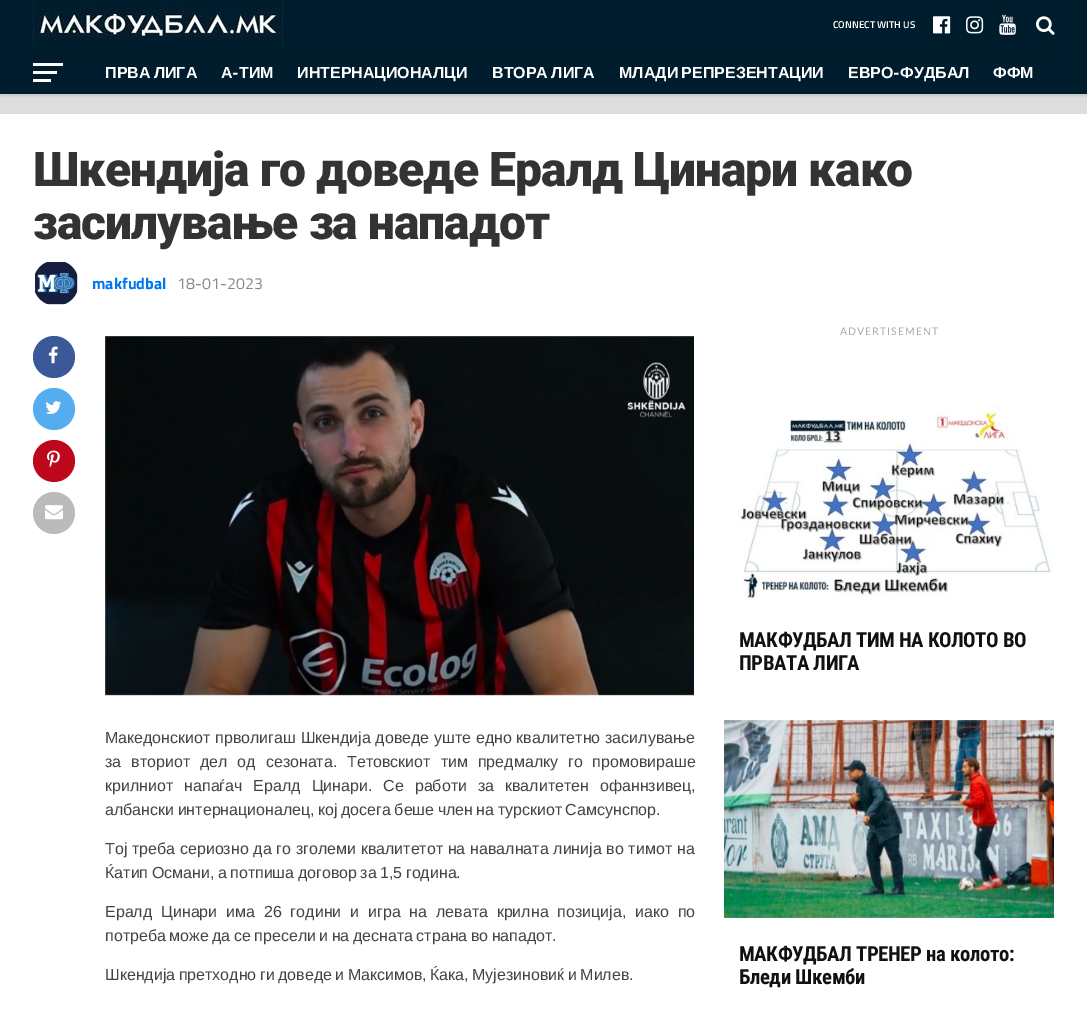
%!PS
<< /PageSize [1087 1017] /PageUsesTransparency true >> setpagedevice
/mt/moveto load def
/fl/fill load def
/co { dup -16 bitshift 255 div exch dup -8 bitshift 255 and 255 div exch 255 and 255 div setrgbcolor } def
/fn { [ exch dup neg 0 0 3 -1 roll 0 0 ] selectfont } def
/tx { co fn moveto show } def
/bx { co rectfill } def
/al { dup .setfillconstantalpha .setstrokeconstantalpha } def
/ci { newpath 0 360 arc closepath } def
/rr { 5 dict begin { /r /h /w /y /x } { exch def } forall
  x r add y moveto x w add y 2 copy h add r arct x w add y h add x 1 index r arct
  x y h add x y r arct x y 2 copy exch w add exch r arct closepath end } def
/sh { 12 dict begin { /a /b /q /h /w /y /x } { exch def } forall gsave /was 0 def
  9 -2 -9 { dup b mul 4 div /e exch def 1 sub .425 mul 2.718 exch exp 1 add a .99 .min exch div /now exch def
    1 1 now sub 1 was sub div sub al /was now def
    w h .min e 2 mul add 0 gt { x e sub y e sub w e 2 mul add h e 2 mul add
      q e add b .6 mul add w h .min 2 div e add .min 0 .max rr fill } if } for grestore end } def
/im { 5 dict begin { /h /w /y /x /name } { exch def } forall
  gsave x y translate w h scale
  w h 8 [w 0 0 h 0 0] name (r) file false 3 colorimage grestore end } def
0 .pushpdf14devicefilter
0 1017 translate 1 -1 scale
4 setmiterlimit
0 0 1087 1017 16#DDDDDD bx
16#000000 co
0 2 1087 94 0 1 .1 sh
0 0 1087 94 16#001D2D bx
33 50 1021 1 16#001724 bx
(media/1.raw) 33 0 250 48 im
(media/2.raw) 933 16 18 18 im
(media/3.raw) 966 16 18 18 im
(media/4.raw) 999 14 17 21 im
(media/5.raw) 1036 16 19 19 im
33 63 30 3 16#FFFFFF bx
33 71 24 3 16#FFFFFF bx
33 79 18 3 16#FFFFFF bx
0 114 1087 903 16#FFFFFF bx
(media/6.raw) 35 262 43 43 im
16#3B5998 co
54 357 21 ci fl
(media/7.raw) 48 346 10 18 im
16#55ACEE co
54 409 21 ci fl
(media/8.raw) 45 401 17 13 im
16#BD081C co
54 461 21 ci fl
(media/9.raw) 47 450 13 18 im
16#BBBBBB co
54 513 21 ci fl
(media/10.raw) 45 505 18 15 im
(media/11.raw) 105 336 589 360 im
(media/12.raw) 738 406 315 193 im
(media/13.raw) 724 720 330 198 im
(CONNECT WITH US) 833 28 /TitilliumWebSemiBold-SemiBold 10 16#FFFFFF tx
/LiberationSans-Bold 16 fn
105 78 mt -1 0 32 (ПРВА ЛИГА) widthshow
(А) 221 78 /LiberationSans-Bold 16 16#FFFFFF tx
(-) 232 78 /TitilliumWeb-Bold 16 16#FFFFFF tx
(ТИМ) 239 78 /LiberationSans-Bold 16 16#FFFFFF tx
(ИНТЕРНАЦИОНАЛЦИ) 297 78 /LiberationSans-Bold 16 16#FFFFFF tx
492 78 mt -1 0 32 (ВТОРА ЛИГА) widthshow
619 78 mt -1 0 32 (МЛАДИ РЕПРЕЗЕНТАЦИИ) widthshow
(ЕВРО) 848 78 /LiberationSans-Bold 16 16#FFFFFF tx
(-) 893 78 /TitilliumWeb-Bold 16 16#FFFFFF tx
(ФУДБАЛ) 900 78 /LiberationSans-Bold 16 16#FFFFFF tx
(ФФМ) 993 78 /LiberationSans-Bold 16 16#FFFFFF tx
/Roboto-Black 48 fn
16#333333 co
33 186 mt -.95 0 (Шкендија го доведе Ералд Цинари како) ashow
33 239 mt -.95 0 (засилување за нападот) ashow
(makfudbal) 92 289 /TitilliumWeb-Bold 16 16#0077EE tx
(18-01-2023) 177 289 /TitilliumWeb-Regular 16 16#888888 tx
/LiberationSans-Regular 16 fn
16#444444 co
105 743 mt .25 0 32 (Македонскиот прволигаш Шкендија доведе уште едно квалитетно засилување) widthshow
105 767 mt 5.5 0 32 (за вториот дел од сезоната. Тетовскиот тим предмалку го промовираше) widthshow
105 791 mt 6.5 0 32 (крилниот напаѓач Ералд Цинари. Се работи за квалитетен офаннзивец,) widthshow
105 815 mt -1 0 32 (албански интернационалец, кој досега беше член на турскиот Самсунспор.) widthshow
105 854 mt .25 0 32 (Тој треба сериозно да го зголеми квалитетот на навалната линија во тимот на) widthshow
105 878 mt -1 0 32 (Ќатип Османи, а потпиша договор за 1,5 година.) widthshow
105 917 mt 4.4 0 32 (Ералд Цинари има 26 години и игра на левата крилна позиција, иако по) widthshow
105 941 mt -1 0 32 (потреба може да се пресели и на десната страна во нападот.) widthshow
105 980 mt -1 0 32 (Шкендија претходно ги доведе и Максимов, Ќака, Мујезиновиќ и Милев.) widthshow
/Lato-Regular 10.5 fn
16#AAAAAA co
840 335 mt 1 0 (ADVERTISEMENT) ashow
/RobotoCondensed-Bold 20.75 fn
16#111111 co
739 647 mt -.4 0 (МАКФУДБАЛ ТИМ НА КОЛОТО ВО) ashow
739 670 mt -.4 0 (ПРВАТА ЛИГА) ashow
739 961 mt -.4 0 (МАКФУДБАЛ ТРЕНЕР на колото:) ashow
739 984 mt -.4 0 (Бледи Шкемби) ashow
.poppdf14devicefilter showpage
